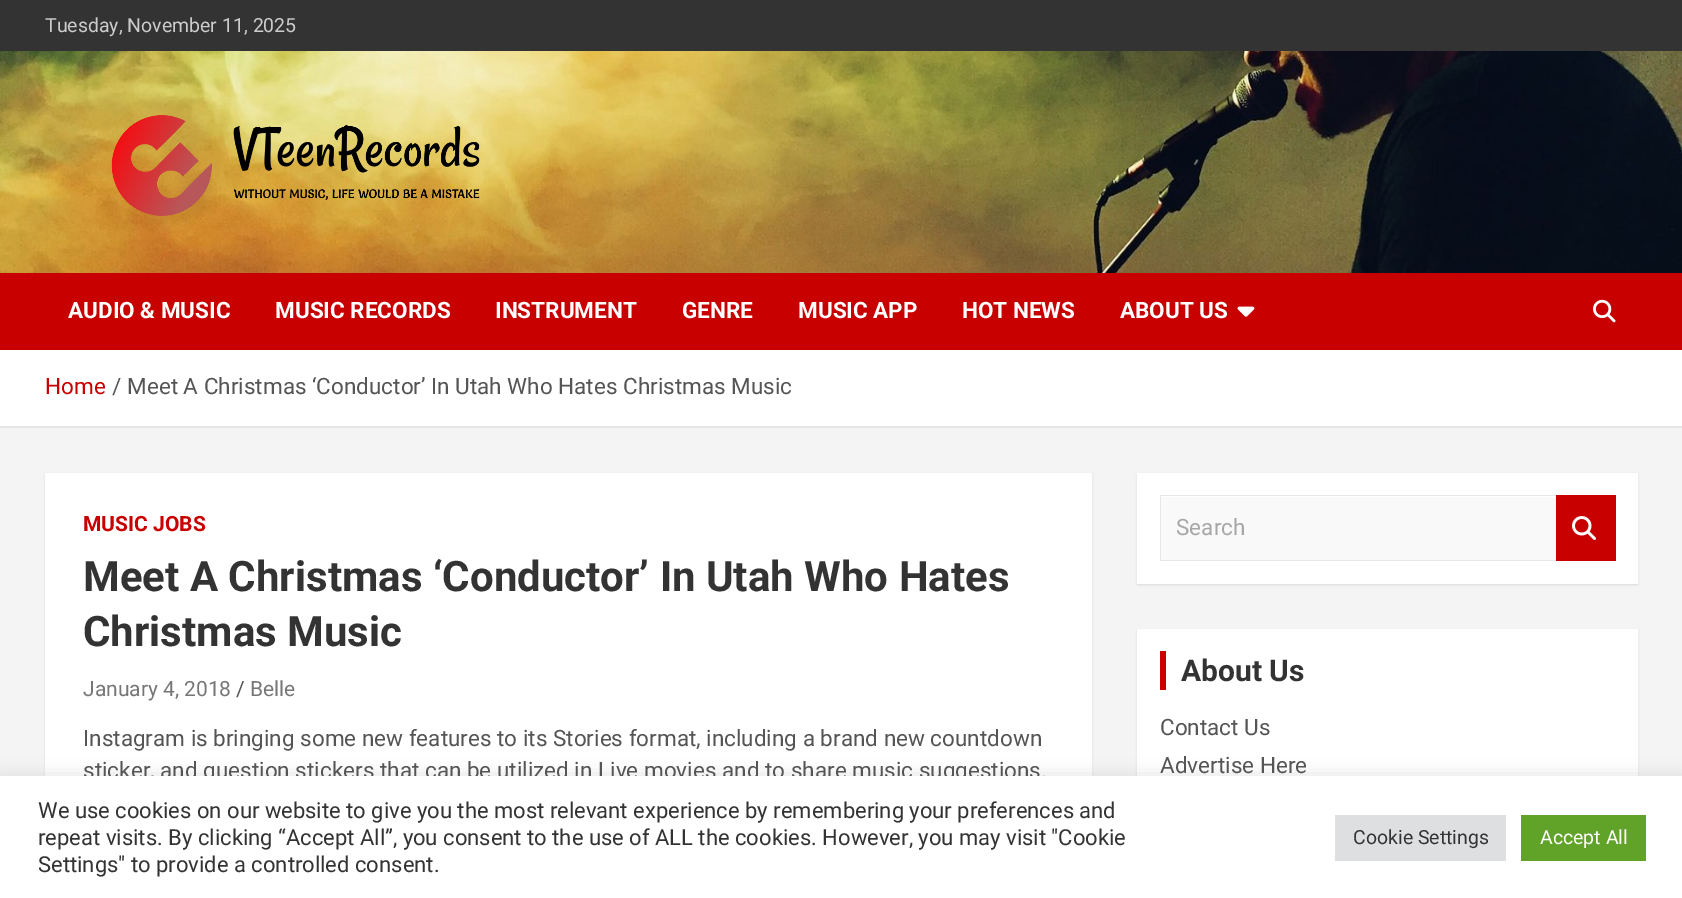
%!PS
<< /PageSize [1682 898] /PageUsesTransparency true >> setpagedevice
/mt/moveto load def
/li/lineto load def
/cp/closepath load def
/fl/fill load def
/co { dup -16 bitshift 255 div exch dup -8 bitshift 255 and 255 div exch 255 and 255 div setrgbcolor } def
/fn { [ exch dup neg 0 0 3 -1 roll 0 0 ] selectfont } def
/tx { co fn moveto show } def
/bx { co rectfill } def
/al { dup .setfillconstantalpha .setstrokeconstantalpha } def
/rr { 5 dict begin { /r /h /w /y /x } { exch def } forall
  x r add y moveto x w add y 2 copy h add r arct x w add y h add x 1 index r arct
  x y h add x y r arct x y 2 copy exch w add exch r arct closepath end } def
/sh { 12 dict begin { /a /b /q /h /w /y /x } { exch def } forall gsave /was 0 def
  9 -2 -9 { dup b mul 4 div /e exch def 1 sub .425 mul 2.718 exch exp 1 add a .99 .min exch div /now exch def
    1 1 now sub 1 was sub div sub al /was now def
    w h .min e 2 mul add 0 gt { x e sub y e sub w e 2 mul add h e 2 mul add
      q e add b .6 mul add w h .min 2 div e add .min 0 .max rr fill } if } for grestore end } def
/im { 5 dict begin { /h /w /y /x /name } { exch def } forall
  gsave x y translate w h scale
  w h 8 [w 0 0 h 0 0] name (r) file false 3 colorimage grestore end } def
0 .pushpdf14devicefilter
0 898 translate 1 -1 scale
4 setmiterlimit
0 0 1682 898 16#F4F4F4 bx
0 0 1682 51 16#333333 bx
(media/1.raw) 0 51 1682 222 im
(media/2.raw) 111 115 369 101 im
0 273 1682 77 16#C80000 bx
(media/3.raw) 1237 306 18 11 im
(media/4.raw) 1593 299 23 24 im
0 350 1682 76 16#FFFFFF bx
0 426 1682 2 16#E6E6E6 bx
16#000000 co
45 474 1047 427 0 1 .1 sh
45 473 1047 303 16#FFFFFF bx
16#000000 co
1137 474 501 111 0 1 .1 sh
1137 473 501 111 16#FFFFFF bx
1161 497 395 63 16#F9F9F9 bx
16#E8E8E8 co
1160 495 mt 1556 495 li 1556 496 li 1161 496 li cp fl
1556 561 mt 1160 561 li 1161 560 li 1556 560 li cp fl
0.09 al
16#000000 co
1160 561 mt 1160 495 li 1161 496 li 1161 560 li cp fl
1 al
1556 495 60 66 16#C80000 bx
(media/5.raw) 1572 516 24 24 im
16#000000 co
1137 630 501 251 0 1 .1 sh
1137 629 501 147 16#FFFFFF bx
1160 651 6 39 16#C80000 bx
16#ACABAB co
0 774 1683 123 0 7.5 .3 sh
(Tuesday, November 11, 2025) 45 32 /Roboto-Regular 19.5 16#CCCCCC tx
(AUDIO & MUSIC) 68 318 /Roboto-Bold 22.5 16#FFFFFF tx
(MUSIC RECORDS) 275 318 /Roboto-Bold 22.5 16#FFFFFF tx
(INSTRUMENT) 495 318 /Roboto-Bold 22.5 16#FFFFFF tx
(GENRE) 682 318 /Roboto-Bold 22.5 16#FFFFFF tx
(MUSIC APP) 798 318 /Roboto-Bold 22.5 16#FFFFFF tx
(HOT NEWS) 962 318 /Roboto-Bold 22.5 16#FFFFFF tx
(ABOUT US) 1120 318 /Roboto-Bold 22.5 16#FFFFFF tx
(Home) 45 394 /Roboto-Regular 22.5 16#C80000 tx
(/) 112 394 /Roboto-Regular 22.5 16#555555 tx
(Meet A Christmas ‘Conductor’ In Utah Who Hates Christmas Music) 127 394 /Roboto-Regular 22.5 16#555555 tx
(MUSIC JOBS) 83 531 /Roboto-Bold 21 16#C80000 tx
(Meet A Christmas ‘Conductor’ In Utah Who Hates) 83 591 /Roboto-Bold 42 16#333333 tx
(Christmas Music) 83 646 /Roboto-Bold 42 16#333333 tx
(January 4, 2018) 83 696 /Roboto-Regular 21 16#777777 tx
(/) 236 696 /Roboto-Regular 21 16#555555 tx
(Belle) 250 696 /Roboto-Regular 21 16#777777 tx
(Instagram is bringing some new features to its Stories format, including a brand new countdown) 83 746 /Roboto-Regular 22.5 16#555555 tx
(sticker, and question stickers that can be utilized in Live movies and to share music suggestions.) 83 778 /Roboto-Regular 22.5 16#555555 tx
(Search) 1176 535 /Roboto-Regular 22.5 16#A7A7A7 tx
(About Us) 1181 681 /Roboto-Bold 30 16#333333 tx
(Contact Us) 1160 735 /Roboto-Regular 22.5 16#555555 tx
(Advertise Here) 1160 773 /Roboto-Regular 22.5 16#555555 tx
0 776 1682 122 16#FFFFFF bx
(We use cookies on our website to give you the most relevant experience by remembering your preferences and) 38 818 /Roboto-Regular 22 16#333333 tx
(repeat visits. By clicking “Accept All”, you consent to the use of ALL the cookies. However, you may visit "Cookie) 38 845 /Roboto-Regular 22 16#333333 tx
(Settings" to provide a controlled consent.) 38 872 /Roboto-Regular 22 16#333333 tx
1335 815 171 46 16#DEDFE0 bx
(Cookie Settings) 1353 844 /Roboto-Regular 19.5 16#333333 tx
1521 815 125 46 16#61A229 bx
(Accept All) 1540 844 /Roboto-Regular 19.5 16#FFFFFF tx
.poppdf14devicefilter showpage
